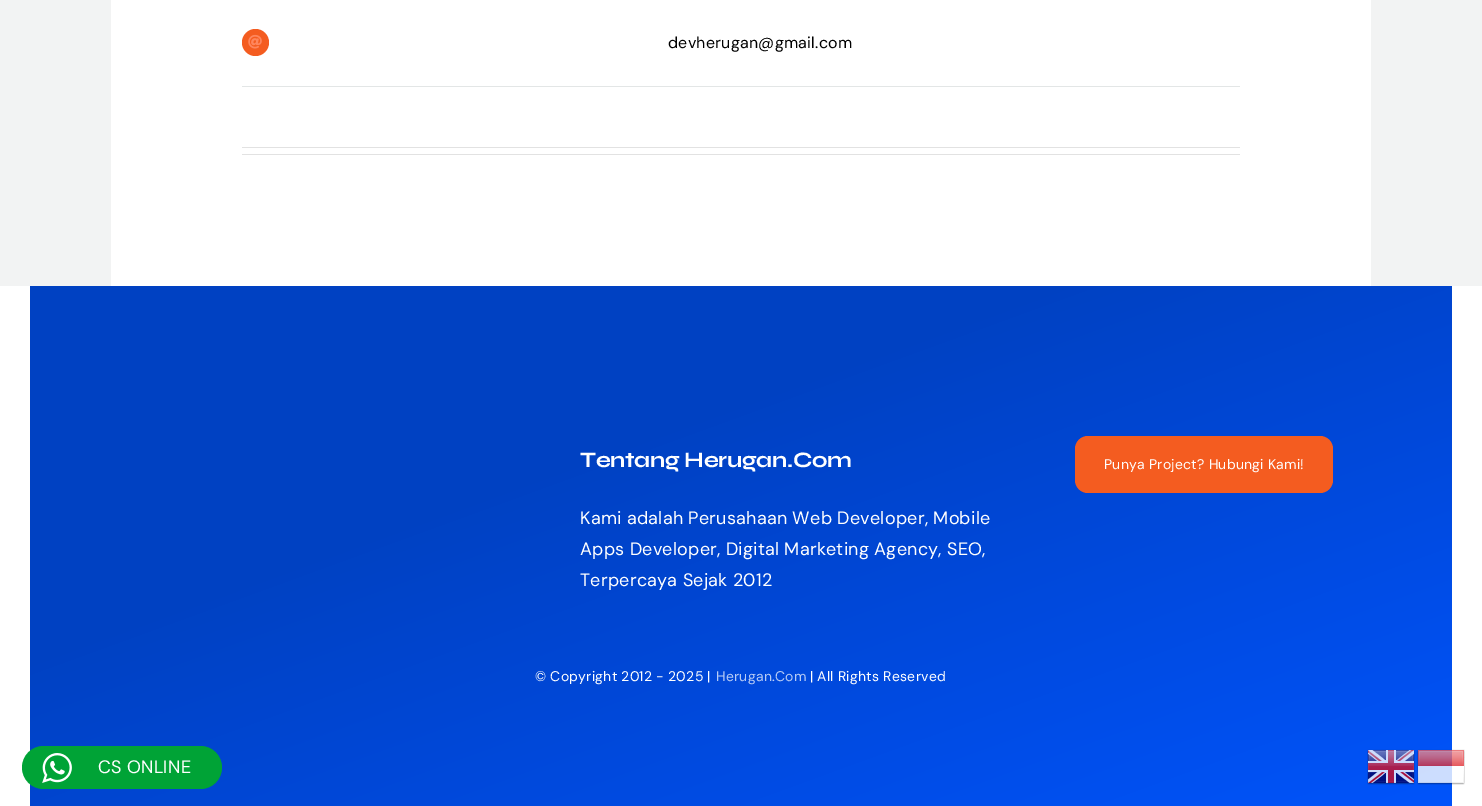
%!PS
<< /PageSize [1482 806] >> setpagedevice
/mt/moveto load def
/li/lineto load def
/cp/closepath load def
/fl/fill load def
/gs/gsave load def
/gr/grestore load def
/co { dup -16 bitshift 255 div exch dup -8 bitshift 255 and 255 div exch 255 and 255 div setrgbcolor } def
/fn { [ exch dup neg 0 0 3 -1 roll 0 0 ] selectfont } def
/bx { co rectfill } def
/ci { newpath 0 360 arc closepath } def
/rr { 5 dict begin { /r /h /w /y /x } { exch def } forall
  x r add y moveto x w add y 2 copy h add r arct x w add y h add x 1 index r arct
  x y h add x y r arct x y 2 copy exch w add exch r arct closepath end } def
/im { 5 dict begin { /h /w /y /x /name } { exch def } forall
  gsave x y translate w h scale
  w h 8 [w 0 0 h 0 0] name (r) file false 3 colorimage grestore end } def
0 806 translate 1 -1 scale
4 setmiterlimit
0 0 1482 806 16#FFFFFF bx
0 0 1482 286 16#F2F3F3 bx
111 0 1260 286 16#FFFFFF bx
16#F45C20 co
255.5 42.5 13.5 ci fl
(media/1.raw) 248 34 14 15 im
242 86 998 1 16#E3E6E6 bx
242 147 998 1 16#E2E2E2 bx
242 154 998 1 16#E2E2E2 bx
gs 30 286 mt 1452 286 li 1452 806 li 30 806 li cp clip newpath
<< /ShadingType 2 /ColorSpace /DeviceRGB /Coords [567 91 915 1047] /Extend [true true] /Function << /FunctionType 3 /Domain [0 1] /Functions [<< /FunctionType 2 /Domain [0 1] /C0 [0 .255 .761] /C1 [0 .255 .761] /N 1 >> << /FunctionType 2 /Domain [0 1] /C0 [0 .255 .761] /C1 [0 .333 1] /N 1 >>] /Bounds [.34] /Encode [0 1 0 1] >> >> shfill gr
16#F45C20 co
1075 436 258 57 13 rr fl
16#00A336 co
22 746 200 43 21.5 rr fl
(media/2.raw) 42 753 30 30 im
(media/3.raw) 1367 749 48 36 im
(media/4.raw) 1417 749 48 36 im
/DMSans-Regular 16 fn
16#000000 co
668 48 mt .25 0 (devherugan@gmail.com) ashow
/Syne-Bold 22 fn
16#FFFFFF co
580 467 mt -.3 0 (Tentang Herugan.Com) ashow
/DMSans-Regular 18 fn
580 524 mt .25 0 (Kami adalah Perusahaan Web Developer, Mobile) ashow
580 555 mt .25 0 (Apps Developer, Digital Marketing Agency, SEO,) ashow
580 586 mt .25 0 (Terpercaya Sejak 2012) ashow
/DMSans-Regular 14 fn
1104 469 mt .25 0 (Punya Project? Hubungi Kami!) ashow
535 681 mt .25 0 (© Copyright 2012 - 2025 |) ashow
16#B8CCF5 co
716 681 mt .25 0 (Herugan.Com) ashow
16#FFFFFF co
810 681 mt .25 0 (| All Rights Reserved) ashow
/DMSans-Regular 18 fn
98 773 mt .25 0 (CS ONLINE) ashow
showpage
